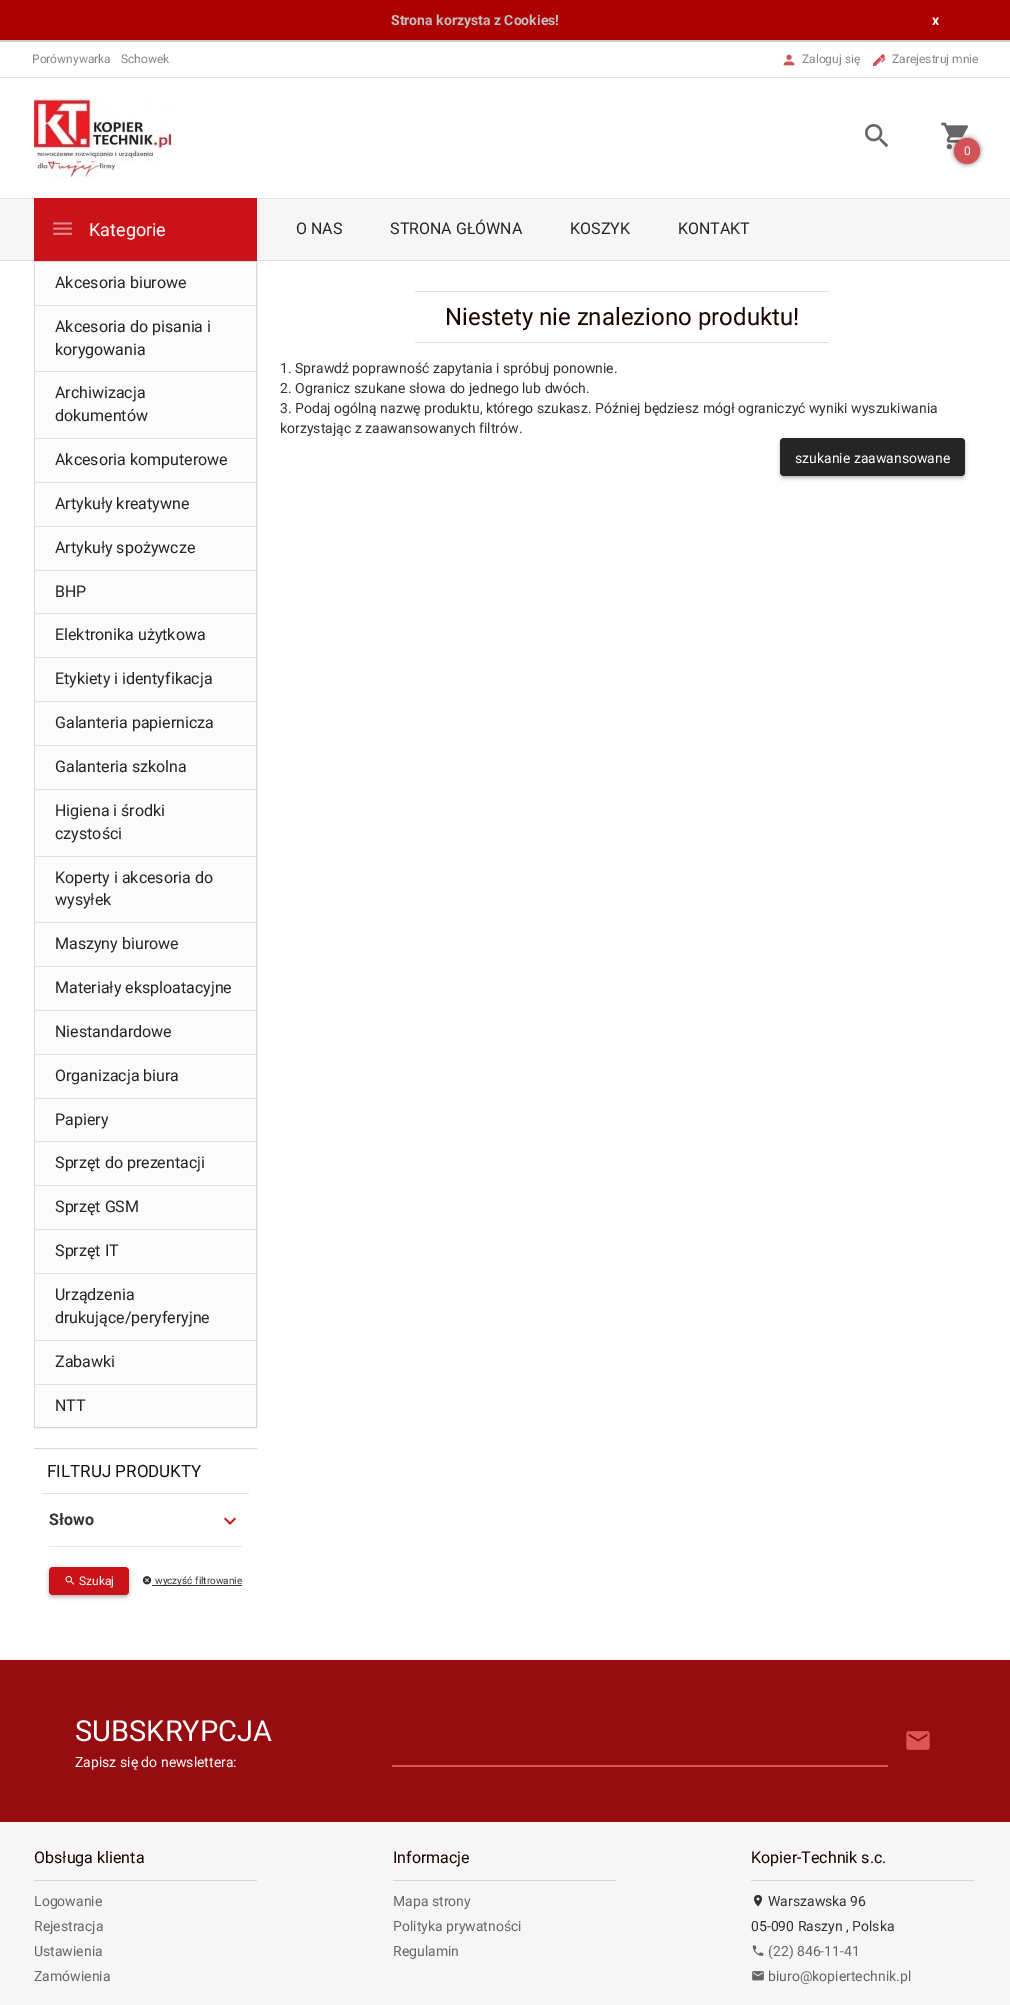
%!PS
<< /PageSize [1010 2005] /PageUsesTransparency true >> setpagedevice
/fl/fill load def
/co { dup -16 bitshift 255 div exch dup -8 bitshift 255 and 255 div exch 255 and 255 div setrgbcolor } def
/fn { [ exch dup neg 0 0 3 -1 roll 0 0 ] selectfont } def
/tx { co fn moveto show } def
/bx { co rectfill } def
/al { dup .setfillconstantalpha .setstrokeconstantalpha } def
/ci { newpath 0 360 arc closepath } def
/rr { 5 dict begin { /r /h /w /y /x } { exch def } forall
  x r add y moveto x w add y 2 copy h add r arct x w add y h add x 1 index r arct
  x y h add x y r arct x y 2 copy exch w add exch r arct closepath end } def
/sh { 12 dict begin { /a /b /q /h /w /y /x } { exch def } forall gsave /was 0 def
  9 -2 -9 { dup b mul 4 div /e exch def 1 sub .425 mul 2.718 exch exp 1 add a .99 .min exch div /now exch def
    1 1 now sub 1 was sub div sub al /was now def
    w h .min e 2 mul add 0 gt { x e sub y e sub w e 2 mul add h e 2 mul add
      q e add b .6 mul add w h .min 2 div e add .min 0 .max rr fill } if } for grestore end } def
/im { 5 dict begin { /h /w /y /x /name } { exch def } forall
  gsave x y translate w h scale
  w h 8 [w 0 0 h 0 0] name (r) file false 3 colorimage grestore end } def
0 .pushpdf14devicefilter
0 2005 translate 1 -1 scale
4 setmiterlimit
0 0 1010 2005 16#FFFFFF bx
0 0 1010 40 16#AD0000 bx
0 40 1010 2 16#CCCCCC bx
0 77 1010 1 16#E1E1E1 bx
(media/1.raw) 783 54 12 12 im
(media/2.raw) 873 54 13 12 im
(media/3.raw) 34 98 142 80 im
(media/4.raw) 865 124 24 24 im
(media/5.raw) 941 122 27 28 im
16#000000 co
953 137 28 28 14 2 .36 sh
16#D25257 co
967 151 13 ci fl
0 199 1010 61 16#F6F6F6 bx
0 198 1010 1 16#E1E1E1 bx
0 260 1010 1 16#E1E1E1 bx
34 198 223 63 16#C91219 bx
(media/6.raw) 53 222 19 13 im
16#D7D7D7 co
34.5 261.5 222 1166 rectstroke
35 262 221 43 16#FBFBFB bx
35 306 221 65 16#FBFBFB bx
35 305 221 1 16#E1E1E1 bx
35 372 221 66 16#FBFBFB bx
35 371 221 1 16#E1E1E1 bx
35 439 221 43 16#FBFBFB bx
35 438 221 1 16#E1E1E1 bx
35 483 221 43 16#FBFBFB bx
35 482 221 1 16#E1E1E1 bx
35 527 221 43 16#FBFBFB bx
35 526 221 1 16#E1E1E1 bx
35 571 221 42 16#FBFBFB bx
35 570 221 1 16#E1E1E1 bx
35 614 221 43 16#FBFBFB bx
35 613 221 1 16#E1E1E1 bx
35 658 221 43 16#FBFBFB bx
35 657 221 1 16#E1E1E1 bx
35 702 221 43 16#FBFBFB bx
35 701 221 1 16#E1E1E1 bx
35 746 221 43 16#FBFBFB bx
35 745 221 1 16#E1E1E1 bx
35 790 221 66 16#FBFBFB bx
35 789 221 1 16#E1E1E1 bx
35 857 221 65 16#FBFBFB bx
35 856 221 1 16#E1E1E1 bx
35 923 221 43 16#FBFBFB bx
35 922 221 1 16#E1E1E1 bx
35 967 221 43 16#FBFBFB bx
35 966 221 1 16#E1E1E1 bx
35 1011 221 43 16#FBFBFB bx
35 1010 221 1 16#E1E1E1 bx
35 1055 221 43 16#FBFBFB bx
35 1054 221 1 16#E1E1E1 bx
35 1099 221 42 16#FBFBFB bx
35 1098 221 1 16#E1E1E1 bx
35 1142 221 43 16#FBFBFB bx
35 1141 221 1 16#E1E1E1 bx
35 1186 221 43 16#FBFBFB bx
35 1185 221 1 16#E1E1E1 bx
35 1230 221 43 16#FBFBFB bx
35 1229 221 1 16#E1E1E1 bx
35 1274 221 66 16#FBFBFB bx
35 1273 221 1 16#E1E1E1 bx
35 1341 221 43 16#FBFBFB bx
35 1340 221 1 16#E1E1E1 bx
35 1385 221 42 16#FBFBFB bx
35 1384 221 1 16#E1E1E1 bx
34 1448 223 1 16#D7D7D7 bx
42 1493 207 1 16#E1E1E1 bx
(media/7.raw) 224 1517 12 8 im
49 1546 193 1 16#E6E6E6 bx
16#000000 co
49 1569 80 28 4 2 .3 sh
16#C91219 co
49 1567 80 28 4 rr fl
(media/8.raw) 65 1576 10 9 im
(media/9.raw) 142 1576 10 9 im
152 1585 90 1 16#323232 bx
415 291 414 1 16#E1E1E1 bx
415 342 414 1 16#E1E1E1 bx
16#000000 co
780 440 185 38 4 2 .3 sh
16#252525 co
780 438 185 38 4 rr fl
0 1660 1010 162 16#960D11 bx
(media/10.raw) 906 1731 24 19 im
392 1765 496 2 16#DB5559 bx
0 1822 1010 183 16#F6F6F6 bx
34 1880 223 1 16#D7D7D7 bx
393 1880 223 1 16#D7D7D7 bx
751 1880 223 1 16#D7D7D7 bx
(media/11.raw) 753 1894 10 13 im
(media/12.raw) 752 1945 12 11 im
(media/13.raw) 752 1971 12 10 im
(Strona korzysta z Cookies!) 391 25 /Roboto-Bold 14 16#C0C0C0 tx
(x) 932 25 /Roboto-Bold 14 16#F5F5F5 tx
(Porównywarka) 32 63 /Roboto-Regular 12 16#868686 tx
(Schowek) 121 63 /Roboto-Regular 12 16#868686 tx
(Zaloguj się) 802 63 /Roboto-Regular 12 16#868686 tx
(Zarejestruj mnie) 892 63 /Roboto-Regular 12 16#868686 tx
(0) 964 155 /Roboto-Regular 12 16#FFFFFF tx
(Kategorie) 89 236 /Roboto-Regular 18 16#FFFFFF tx
(O NAS) 296 234 /Roboto-Regular 16 16#262626 tx
(STRONA GŁÓWNA) 390 234 /Roboto-Regular 16 16#262626 tx
(KOSZYK) 570 234 /Roboto-Regular 16 16#262626 tx
(KONTAKT) 678 234 /Roboto-Regular 16 16#262626 tx
(Akcesoria biurowe) 55 288 /Roboto-Regular 16 16#262626 tx
(Akcesoria do pisania i) 55 332 /Roboto-Regular 16 16#262626 tx
(korygowania) 55 355 /Roboto-Regular 16 16#262626 tx
(Archiwizacja) 55 398 /Roboto-Regular 16 16#262626 tx
(dokumentów) 55 421 /Roboto-Regular 16 16#262626 tx
(Akcesoria komputerowe) 55 465 /Roboto-Regular 16 16#262626 tx
(Artykuły kreatywne) 55 509 /Roboto-Regular 16 16#262626 tx
(Artykuły spożywcze) 55 553 /Roboto-Regular 16 16#262626 tx
(BHP) 55 597 /Roboto-Regular 16 16#262626 tx
(Elektronika użytkowa) 55 640 /Roboto-Regular 16 16#262626 tx
(Etykiety i identyfikacja) 55 684 /Roboto-Regular 16 16#262626 tx
(Galanteria papiernicza) 55 728 /Roboto-Regular 16 16#262626 tx
(Galanteria szkolna) 55 772 /Roboto-Regular 16 16#262626 tx
(Higiena i środki) 55 816 /Roboto-Regular 16 16#262626 tx
(czystości) 55 839 /Roboto-Regular 16 16#262626 tx
(Koperty i akcesoria do) 55 883 /Roboto-Regular 16 16#262626 tx
(wysyłek) 55 905 /Roboto-Regular 16 16#262626 tx
(Maszyny biurowe) 55 949 /Roboto-Regular 16 16#262626 tx
(Materiały eksploatacyjne) 55 993 /Roboto-Regular 16 16#262626 tx
(Niestandardowe) 55 1037 /Roboto-Regular 16 16#262626 tx
(Organizacja biura) 55 1081 /Roboto-Regular 16 16#262626 tx
(Papiery) 55 1125 /Roboto-Regular 16 16#262626 tx
(Sprzęt do prezentacji) 55 1168 /Roboto-Regular 16 16#262626 tx
(Sprzęt GSM) 55 1212 /Roboto-Regular 16 16#262626 tx
(Sprzęt IT) 55 1256 /Roboto-Regular 16 16#262626 tx
(Urządzenia) 55 1300 /Roboto-Regular 16 16#262626 tx
(drukujące/peryferyjne) 55 1323 /Roboto-Regular 16 16#262626 tx
(Zabawki) 55 1367 /Roboto-Regular 16 16#262626 tx
(NTT) 55 1411 /Roboto-Regular 16 16#262626 tx
(FILTRUJ PRODUKTY) 47 1477 /Roboto-Regular 17 16#131313 tx
(Słowo) 49 1525 /Roboto-Bold 16 16#323232 tx
(Szukaj) 79 1585 /Roboto-Regular 12 16#FFFFFF tx
(wyczyść filtrowanie) 155 1584 /Roboto-Regular 10 16#323232 tx
(Niestety nie znaleziono produktu!) 445 325 /Roboto-Regular 24 16#190101 tx
(1. Sprawdź poprawność zapytania i spróbuj ponownie.) 280 373 /Roboto-Regular 14 16#323232 tx
(2. Ogranicz szukane słowa do jednego lub dwóch.) 280 393 /Roboto-Regular 14 16#323232 tx
(3. Podaj ogólną nazwę produktu, którego szukasz. Później będziesz mógł ograniczyć wyniki wyszukiwania) 280 413 /Roboto-Regular 14 16#323232 tx
(korzystając z zaawansowanych filtrów.) 280 433 /Roboto-Regular 14 16#323232 tx
(szukanie zaawansowane) 795 463 /Roboto-Regular 14 16#FFFFFF tx
(SUBSKRYPCJA) 75 1741 /Roboto-Regular 29 16#FFFFFF tx
(Zapisz się do newslettera:) 75 1767 /Roboto-Regular 14 16#FFFFFF tx
(Obsługa klienta) 34 1863 /Roboto-Regular 16 16#190101 tx
(Logowanie) 34 1906 /Roboto-Regular 14 16#666666 tx
(Rejestracja) 34 1931 /Roboto-Regular 14 16#666666 tx
(Ustawienia) 34 1956 /Roboto-Regular 14 16#666666 tx
(Zamówienia) 34 1981 /Roboto-Regular 14 16#666666 tx
(Informacje) 393 1863 /Roboto-Regular 16 16#190101 tx
(Mapa strony) 393 1906 /Roboto-Regular 14 16#666666 tx
(Polityka prywatności) 393 1931 /Roboto-Regular 14 16#666666 tx
(Regulamin) 393 1956 /Roboto-Regular 14 16#666666 tx
(Kopier-Technik s.c.) 751 1863 /Roboto-Regular 16 16#190101 tx
(Warszawska 96) 768 1906 /Roboto-Regular 14 16#323232 tx
(05-090 Raszyn , Polska) 751 1931 /Roboto-Regular 14 16#323232 tx
(\(22\) 846-11-41) 768 1956 /Roboto-Regular 14 16#666666 tx
(biuro@kopiertechnik.pl) 768 1981 /Roboto-Regular 14 16#666666 tx
.poppdf14devicefilter showpage
